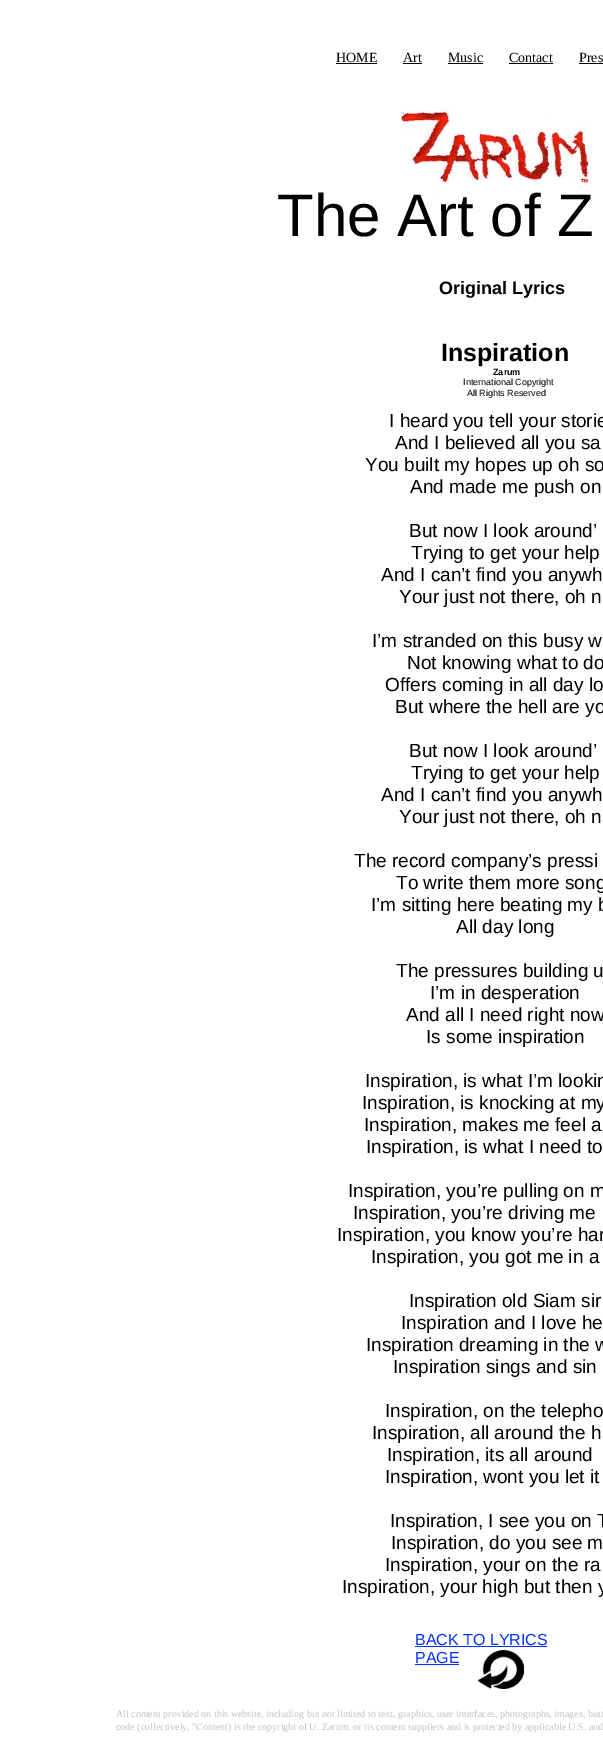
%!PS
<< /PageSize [603 1739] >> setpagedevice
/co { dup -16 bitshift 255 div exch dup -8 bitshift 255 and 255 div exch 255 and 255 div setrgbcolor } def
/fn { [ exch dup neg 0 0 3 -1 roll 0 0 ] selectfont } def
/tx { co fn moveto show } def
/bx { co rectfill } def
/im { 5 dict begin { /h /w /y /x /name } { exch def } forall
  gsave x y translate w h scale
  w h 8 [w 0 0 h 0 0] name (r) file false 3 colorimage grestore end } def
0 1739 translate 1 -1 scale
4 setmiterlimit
0 0 603 1739 16#FFFFFF bx
336 63 41 1 16#000000 bx
403 63 19 1 16#000000 bx
448 63 35 1 16#000000 bx
509 63 44 1 16#000000 bx
579 63 24 1 16#000000 bx
(media/1.raw) 400 103 192 91 im
415 1646 132 1 16#0432FF bx
415 1664 44 1 16#0432FF bx
(media/2.raw) 478 1650 46 39 im
(HOME) 336 62 /LiberationSerif-Regular 14 16#000000 tx
(Art) 403 62 /LiberationSerif-Regular 14 16#000000 tx
(Music) 448 62 /LiberationSerif-Regular 14 16#000000 tx
(Contact) 509 62 /LiberationSerif-Regular 14 16#000000 tx
(Pres) 579 62 /LiberationSerif-Regular 14 16#000000 tx
(The Art of Z) 277 236 /LiberationSans-Regular 60 16#000000 tx
(Original Lyrics) 439 294 /LiberationSans-Bold 18 16#000000 tx
(Inspiration) 441 361 /LiberationSans-Bold 25 16#000000 tx
(Zarum) 493 375 /LiberationSans-Bold 9 16#000000 tx
(International Copyright) 463 385 /LiberationSans-Regular 9 16#000000 tx
(All Rights Reserved) 467 396 /LiberationSans-Regular 9 16#000000 tx
(I heard you tell your storie) 389 427 /LiberationSans-Regular 19 16#000000 tx
(And I believed all you sa) 395 449 /LiberationSans-Regular 19 16#000000 tx
(You built my hopes up oh so) 365 471 /LiberationSans-Regular 19 16#000000 tx
(And made me push on) 410 493 /LiberationSans-Regular 19 16#000000 tx
(But now I look around’) 409 537 /LiberationSans-Regular 19 16#000000 tx
(Trying to get your help) 411 559 /LiberationSans-Regular 19 16#000000 tx
(And I can’t find you anywh) 381 581 /LiberationSans-Regular 19 16#000000 tx
(Your just not there, oh n) 399 603 /LiberationSans-Regular 19 16#000000 tx
(I’m stranded on this busy w) 372 647 /LiberationSans-Regular 19 16#000000 tx
(Not knowing what to do) 407 669 /LiberationSans-Regular 19 16#000000 tx
(Offers coming in all day lo) 385 691 /LiberationSans-Regular 19 16#000000 tx
(But where the hell are yo) 395 713 /LiberationSans-Regular 19 16#000000 tx
(But now I look around’) 409 757 /LiberationSans-Regular 19 16#000000 tx
(Trying to get your help) 411 779 /LiberationSans-Regular 19 16#000000 tx
(And I can’t find you anywh) 381 801 /LiberationSans-Regular 19 16#000000 tx
(Your just not there, oh n) 399 823 /LiberationSans-Regular 19 16#000000 tx
(The record company’s pressi) 354 867 /LiberationSans-Regular 19 16#000000 tx
(To write them more song) 396 889 /LiberationSans-Regular 19 16#000000 tx
(I’m sitting here beating my b) 371 911 /LiberationSans-Regular 19 16#000000 tx
(All day long) 456 933 /LiberationSans-Regular 19 16#000000 tx
(The pressures building u) 396 977 /LiberationSans-Regular 19 16#000000 tx
(I’m in desperation) 430 999 /LiberationSans-Regular 19 16#000000 tx
(And all I need right now) 406 1021 /LiberationSans-Regular 19 16#000000 tx
(Is some inspiration) 426 1043 /LiberationSans-Regular 19 16#000000 tx
(Inspiration, is what I’m lookin) 365 1087 /LiberationSans-Regular 19 16#000000 tx
(Inspiration, is knocking at my) 362 1109 /LiberationSans-Regular 19 16#000000 tx
(Inspiration, makes me feel a) 364 1131 /LiberationSans-Regular 19 16#000000 tx
(Inspiration, is what I need to) 366 1153 /LiberationSans-Regular 19 16#000000 tx
(Inspiration, you’re pulling on m) 348 1197 /LiberationSans-Regular 19 16#000000 tx
(Inspiration, you’re driving me) 353 1219 /LiberationSans-Regular 19 16#000000 tx
(Inspiration, you know you’re har) 337 1241 /LiberationSans-Regular 19 16#000000 tx
(Inspiration, you got me in a) 371 1263 /LiberationSans-Regular 19 16#000000 tx
(Inspiration old Siam sir) 409 1307 /LiberationSans-Regular 19 16#000000 tx
(Inspiration and I love he) 401 1329 /LiberationSans-Regular 19 16#000000 tx
(Inspiration dreaming in the w) 366 1351 /LiberationSans-Regular 19 16#000000 tx
(Inspiration sings and sin) 393 1373 /LiberationSans-Regular 19 16#000000 tx
(Inspiration, on the telepho) 385 1417 /LiberationSans-Regular 19 16#000000 tx
(Inspiration, all around the h) 372 1439 /LiberationSans-Regular 19 16#000000 tx
(Inspiration, its all around) 387 1461 /LiberationSans-Regular 19 16#000000 tx
(Inspiration, wont you let it) 385 1483 /LiberationSans-Regular 19 16#000000 tx
(Inspiration, I see you on T) 390 1527 /LiberationSans-Regular 19 16#000000 tx
(Inspiration, do you see m) 391 1549 /LiberationSans-Regular 19 16#000000 tx
(Inspiration, your on the ra) 385 1571 /LiberationSans-Regular 19 16#000000 tx
(Inspiration, your high but then y) 342 1593 /LiberationSans-Regular 19 16#000000 tx
(BACK TO LYRICS) 415 1645 /LiberationSans-Regular 16 16#0432FF tx
(PAGE) 415 1663 /LiberationSans-Regular 16 16#0432FF tx
(All content provided on this website, including but not limited to text, graphics, user interfaces, photographs, images, butt) 116 1717 /LiberationSerif-Regular 10 16#C0C0C0 tx
(code \(collectively, "Content\) is the copyright of U. Zarum. or its content suppliers and is protected by applicable U.S. and) 116 1730 /LiberationSerif-Regular 10 16#C0C0C0 tx
showpage
